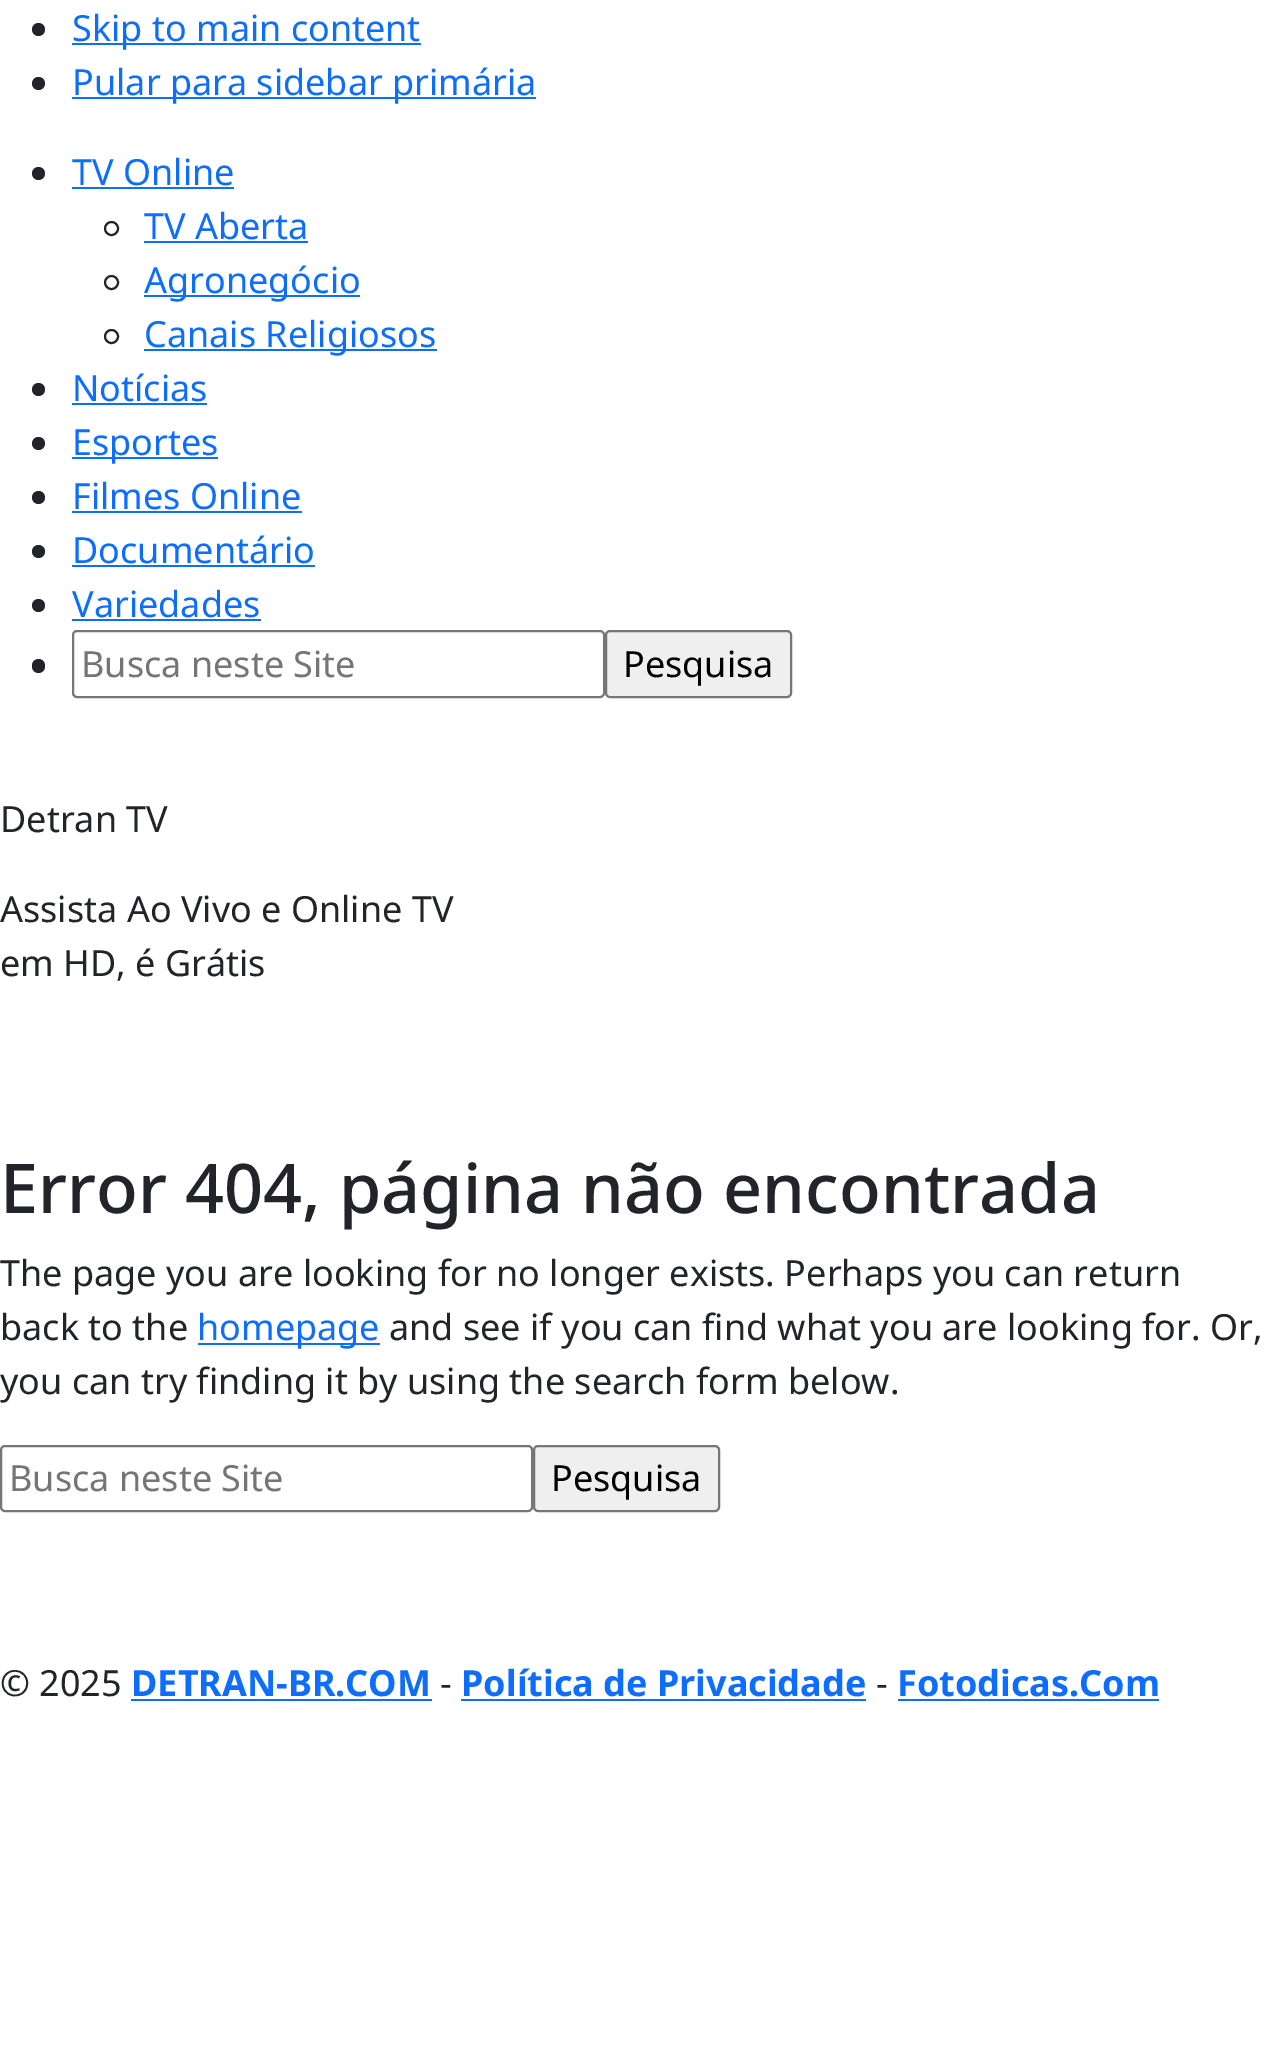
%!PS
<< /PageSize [1266 2070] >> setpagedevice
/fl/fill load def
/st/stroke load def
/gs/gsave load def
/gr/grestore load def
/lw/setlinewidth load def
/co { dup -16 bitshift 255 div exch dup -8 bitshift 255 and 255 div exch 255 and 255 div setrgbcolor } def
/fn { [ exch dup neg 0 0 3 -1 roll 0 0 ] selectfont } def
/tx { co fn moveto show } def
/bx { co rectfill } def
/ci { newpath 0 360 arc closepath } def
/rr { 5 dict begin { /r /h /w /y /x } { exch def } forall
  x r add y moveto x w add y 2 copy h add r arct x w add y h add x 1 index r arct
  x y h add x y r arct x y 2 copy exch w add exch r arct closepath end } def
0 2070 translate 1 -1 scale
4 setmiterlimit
0 0 1266 2070 16#FFFFFF bx
16#212529 co
38.5 29.5 6.5 ci fl
72 43 349 2 16#0D6EFD bx
16#212529 co
38.5 83.5 6.5 ci fl
72 97 464 2 16#0D6EFD bx
16#212529 co
38.5 173.5 6.5 ci fl
72 187 162 2 16#0D6EFD bx
16#212529 co
2 lw
111.5 228.5 6.5 ci st
144 241 164 2 16#0D6EFD bx
16#212529 co
111.5 282.5 6.5 ci st
144 295 216 2 16#0D6EFD bx
16#212529 co
111.5 336.5 6.5 ci st
144 349 293 2 16#0D6EFD bx
16#212529 co
38.5 389.5 6.5 ci fl
72 403 135 2 16#0D6EFD bx
16#212529 co
38.5 443.5 6.5 ci fl
72 457 146 2 16#0D6EFD bx
16#212529 co
38.5 497.5 6.5 ci fl
72 511 230 2 16#0D6EFD bx
16#212529 co
38.5 551.5 6.5 ci fl
72 565 243 2 16#0D6EFD bx
16#212529 co
38.5 605.5 6.5 ci fl
72 619 189 2 16#0D6EFD bx
16#212529 co
32 659 13 14 6.5 rr fl
16#767676 co
73 631 531 66 4 rr st
16#EFEFEF co
606 631 185 66 4 rr gs fl gr
16#767676 co
st
198 1343 182 2 16#0D6EFD bx
16#767676 co
1 1446 531 65 4 rr st
16#EFEFEF co
534 1446 185 65 4 rr gs fl gr
16#767676 co
st
131 1699 301 2 16#0D6EFD bx
461 1699 405 2 16#0D6EFD bx
898 1699 261 2 16#0D6EFD bx
(Skip to main content) 72 41 /NotoSans-Regular 36 16#0D6EFD tx
(Pular para sidebar primária) 72 95 /NotoSans-Regular 36 16#0D6EFD tx
(TV Online) 72 185 /NotoSans-Regular 36 16#0D6EFD tx
(TV Aberta) 144 239 /NotoSans-Regular 36 16#0D6EFD tx
(Agronegócio) 144 293 /NotoSans-Regular 36 16#0D6EFD tx
(Canais Religiosos) 144 347 /NotoSans-Regular 36 16#0D6EFD tx
(Notícias) 72 401 /NotoSans-Regular 36 16#0D6EFD tx
(Esportes) 72 455 /NotoSans-Regular 36 16#0D6EFD tx
(Filmes Online) 72 509 /NotoSans-Regular 36 16#0D6EFD tx
(Documentário) 72 563 /NotoSans-Regular 36 16#0D6EFD tx
(Variedades) 72 617 /NotoSans-Regular 36 16#0D6EFD tx
(Busca neste Site) 81 677 /NotoSans-Regular 36 16#757575 tx
(Pesquisa) 623 677 /NotoSans-Regular 36 16#000000 tx
(Detran TV) 0 832 /NotoSans-Regular 36 16#212529 tx
(Assista Ao Vivo e Online TV) 0 922 /NotoSans-Regular 36 16#212529 tx
(em HD, é Grátis) 0 976 /NotoSans-Regular 36 16#212529 tx
(Error 404, página não encontrada) 0 1213 /NotoSans-Medium 68.5 16#212529 tx
(The page you are looking for no longer exists. Perhaps you can return) 0 1286 /NotoSans-Regular 36 16#212529 tx
(back to the) 0 1340 /NotoSans-Regular 36 16#212529 tx
(homepage) 197 1340 /NotoSans-Regular 36 16#0D6EFD tx
(and see if you can find what you are looking for. Or,) 389 1340 /NotoSans-Regular 36 16#212529 tx
(you can try finding it by using the search form below.) 0 1394 /NotoSans-Regular 36 16#212529 tx
(Busca neste Site) 9 1491 /NotoSans-Regular 36 16#757575 tx
(Pesquisa) 551 1491 /NotoSans-Regular 36 16#000000 tx
(© 2025) 0 1696 /NotoSans-Regular 36 16#212529 tx
(DETRAN-BR.COM) 131 1696 /NotoSans-Bold 36 16#0D6EFD tx
(-) 440 1696 /NotoSans-Regular 36 16#212529 tx
(Política de Privacidade) 461 1696 /NotoSans-Bold 36 16#0D6EFD tx
(-) 876 1696 /NotoSans-Regular 36 16#212529 tx
(Fotodicas.Com) 897 1696 /NotoSans-Bold 36 16#0D6EFD tx
showpage
